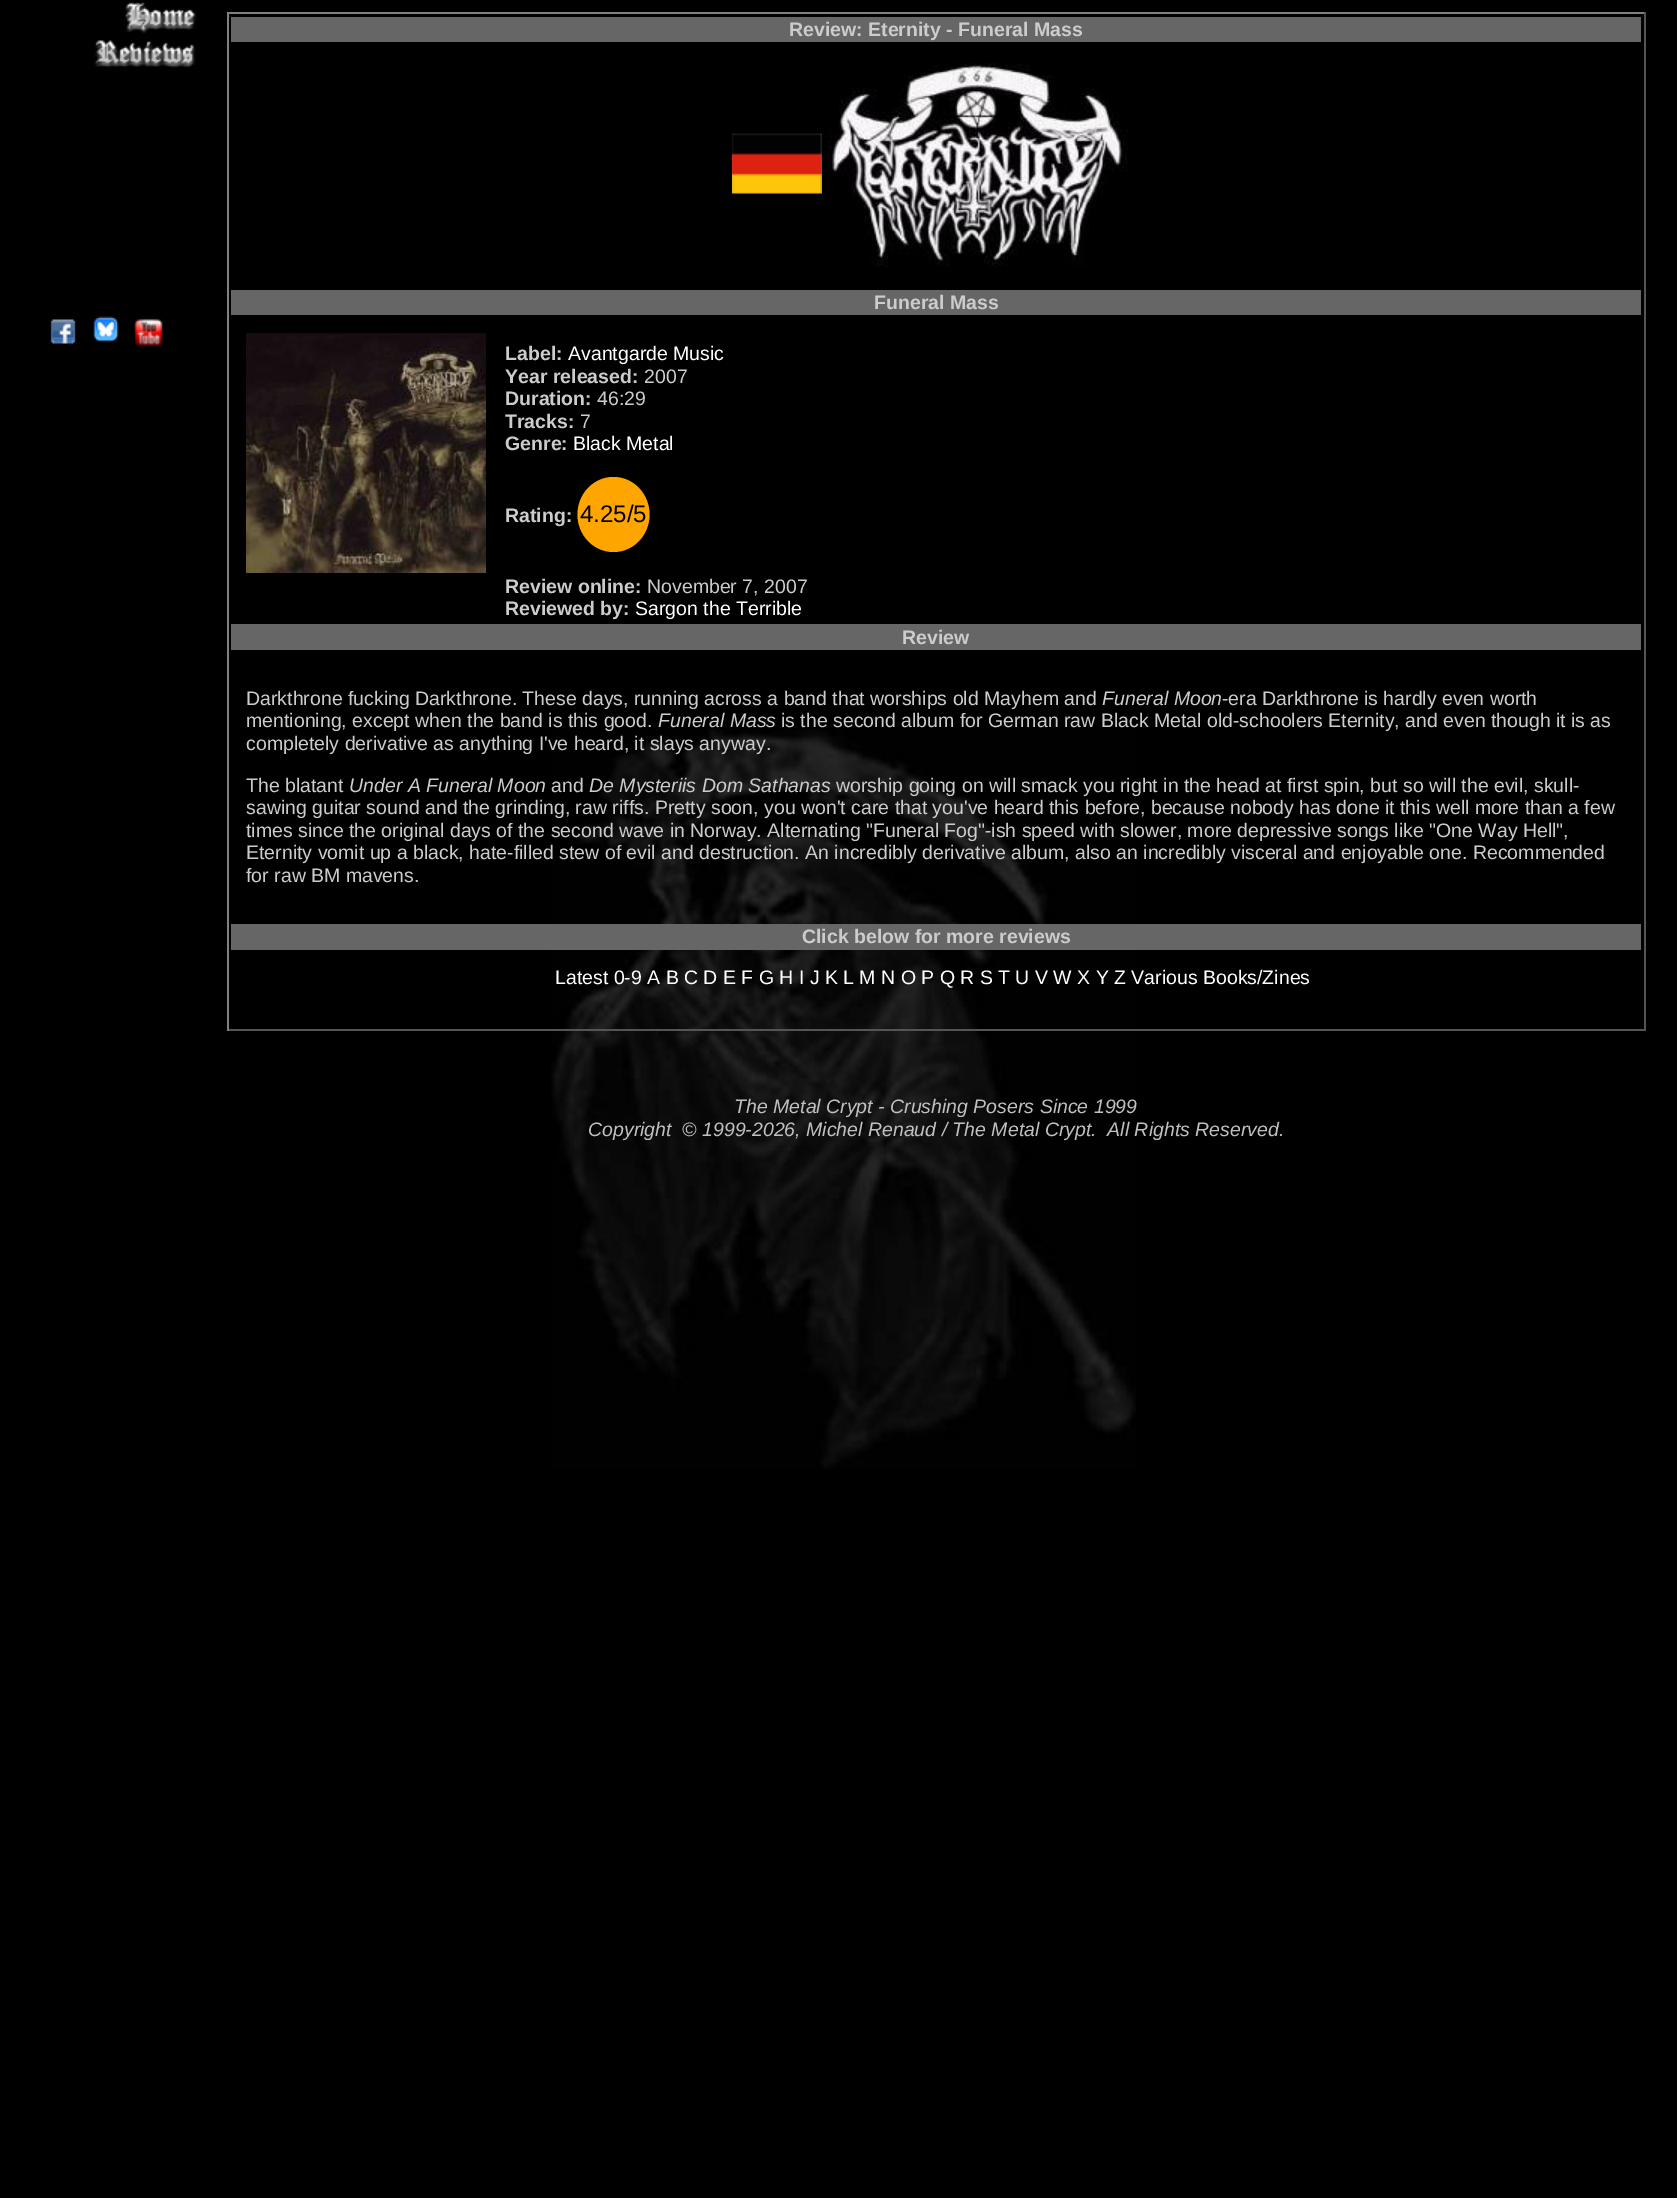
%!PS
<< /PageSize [1677 2198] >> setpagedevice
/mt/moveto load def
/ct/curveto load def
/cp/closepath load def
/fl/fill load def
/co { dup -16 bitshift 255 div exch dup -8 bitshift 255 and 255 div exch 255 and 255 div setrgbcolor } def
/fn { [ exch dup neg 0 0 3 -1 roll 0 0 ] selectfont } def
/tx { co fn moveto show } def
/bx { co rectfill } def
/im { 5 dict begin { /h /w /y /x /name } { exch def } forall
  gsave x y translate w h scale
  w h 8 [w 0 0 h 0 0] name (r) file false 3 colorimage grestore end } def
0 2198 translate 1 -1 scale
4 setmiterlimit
0 0 1677 2198 16#000000 bx
(media/1.raw) 551 728 585 741 im
(media/2.raw) 125 2 71 1 im
(media/3.raw) 124 3 73 31 im
(media/4.raw) 94 38 102 30 im
(media/5.raw) 50 319 26 25 im
(media/6.raw) 93 316 26 27 im
(media/7.raw) 133 318 31 29 im
227 12 1419 2 16#808080 bx
1644 12 2 1019 16#555555 bx
227 1029 1419 2 16#555555 bx
227 12 2 1019 16#808080 bx
231 17 1410 25 16#666666 bx
(media/8.raw) 732 133 90 61 im
(media/9.raw) 828 63 300 204 im
231 290 1410 25 16#666666 bx
(media/10.raw) 246 333 240 240 im
16#FFA500 co
613.5 477 mt 633.5 477 649.5 494 649.5 514.5 ct 649.5 535 633.5 552 613.5 552 ct 593.5 552 577.5 535 577.5 514.5 ct 577.5 494 593.5 477 613.5 477 ct cp fl
231 624 1410 26 16#666666 bx
231 924 1410 26 16#666666 bx
(Review: Eternity - Funeral Mass) 789 36 /LiberationSans-Bold 19.5 16#CCCCCC tx
(Funeral Mass) 874 309 /LiberationSans-Bold 19.5 16#CCCCCC tx
(Label:) 505 360 /LiberationSans-Bold 19.5 16#CCCCCC tx
(Avantgarde Music) 568 360 /LiberationSans-Regular 19.5 16#FFFFFF tx
(Year released:) 505 383 /LiberationSans-Bold 19.5 16#CCCCCC tx
(2007) 644 383 /LiberationSans-Regular 19.5 16#CCCCCC tx
(Duration:) 505 405 /LiberationSans-Bold 19.5 16#CCCCCC tx
(46:29) 597 405 /LiberationSans-Regular 19.5 16#CCCCCC tx
(Tracks:) 505 428 /LiberationSans-Bold 19.5 16#CCCCCC tx
(7) 580 428 /LiberationSans-Regular 19.5 16#CCCCCC tx
(Genre:) 505 450 /LiberationSans-Bold 19.5 16#CCCCCC tx
(Black Metal) 573 450 /LiberationSans-Regular 19.5 16#FFFFFF tx
(Rating:) 505 522 /LiberationSans-Bold 19.5 16#CCCCCC tx
(4.25/5) 580 522 /LiberationSans-Regular 24 16#000000 tx
(Review online:) 505 593 /LiberationSans-Bold 19.5 16#CCCCCC tx
(November 7, 2007) 647 593 /LiberationSans-Regular 19.5 16#CCCCCC tx
(Reviewed by:) 505 615 /LiberationSans-Bold 19.5 16#CCCCCC tx
(Sargon the Terrible) 635 615 /LiberationSans-Regular 19.5 16#FFFFFF tx
(Review) 902 644 /LiberationSans-Bold 19.5 16#CCCCCC tx
(Darkthrone fucking Darkthrone. These days, running across a band that worships old Mayhem and) 246 705 /LiberationSans-Regular 19.5 16#CCCCCC tx
(Funeral Moon) 1102 705 /LiberationSans-Italic 19.5 16#CCCCCC tx
(-era Darkthrone is hardly even worth) 1222 705 /LiberationSans-Regular 19.5 16#CCCCCC tx
(mentioning, except when the band is this good.) 246 727 /LiberationSans-Regular 19.5 16#CCCCCC tx
(Funeral Mass) 658 727 /LiberationSans-Italic 19.5 16#CCCCCC tx
(is the second album for German raw Black Metal old-schoolers Eternity, and even though it is as) 781 727 /LiberationSans-Regular 19.5 16#CCCCCC tx
(completely derivative as anything I've heard, it slays anyway.) 246 750 /LiberationSans-Regular 19.5 16#CCCCCC tx
(The blatant) 246 792 /LiberationSans-Regular 19.5 16#CCCCCC tx
(Under A Funeral Moon) 349 792 /LiberationSans-Italic 19.5 16#CCCCCC tx
(and) 551 792 /LiberationSans-Regular 19.5 16#CCCCCC tx
(De Mysteriis Dom Sathanas) 589 792 /LiberationSans-Italic 19.5 16#CCCCCC tx
(worship going on will smack you right in the head at first spin, but so will the evil, skull-) 836 792 /LiberationSans-Regular 19.5 16#CCCCCC tx
(sawing guitar sound and the grinding, raw riffs. Pretty soon, you won't care that you've heard this before, because nobody has done it this well more than a few) 246 814 /LiberationSans-Regular 19.5 16#CCCCCC tx
(times since the original days of the second wave in Norway. Alternating "Funeral Fog"-ish speed with slower, more depressive songs like "One Way Hell",) 246 837 /LiberationSans-Regular 19.5 16#CCCCCC tx
(Eternity vomit up a black, hate-filled stew of evil and destruction. An incredibly derivative album, also an incredibly visceral and enjoyable one. Recommended) 246 859 /LiberationSans-Regular 19.5 16#CCCCCC tx
(for raw BM mavens.) 246 882 /LiberationSans-Regular 19.5 16#CCCCCC tx
(Click below for more reviews) 802 943 /LiberationSans-Bold 19.5 16#CCCCCC tx
(Latest 0-9 A B C D E F G H I J K L M N O P Q R S T U V W X Y Z Various Books/Zines) 555 984 /LiberationSans-Regular 19.5 16#FFFFFF tx
(The Metal Crypt - Crushing Posers Since 1999) 734 1113 /LiberationSans-Italic 19.5 16#C0C0C0 tx
(Copyright  © 1999-2026, Michel Renaud / The Metal Crypt.  All Rights Reserved.) 588 1136 /LiberationSans-Italic 19.5 16#C0C0C0 tx
showpage
